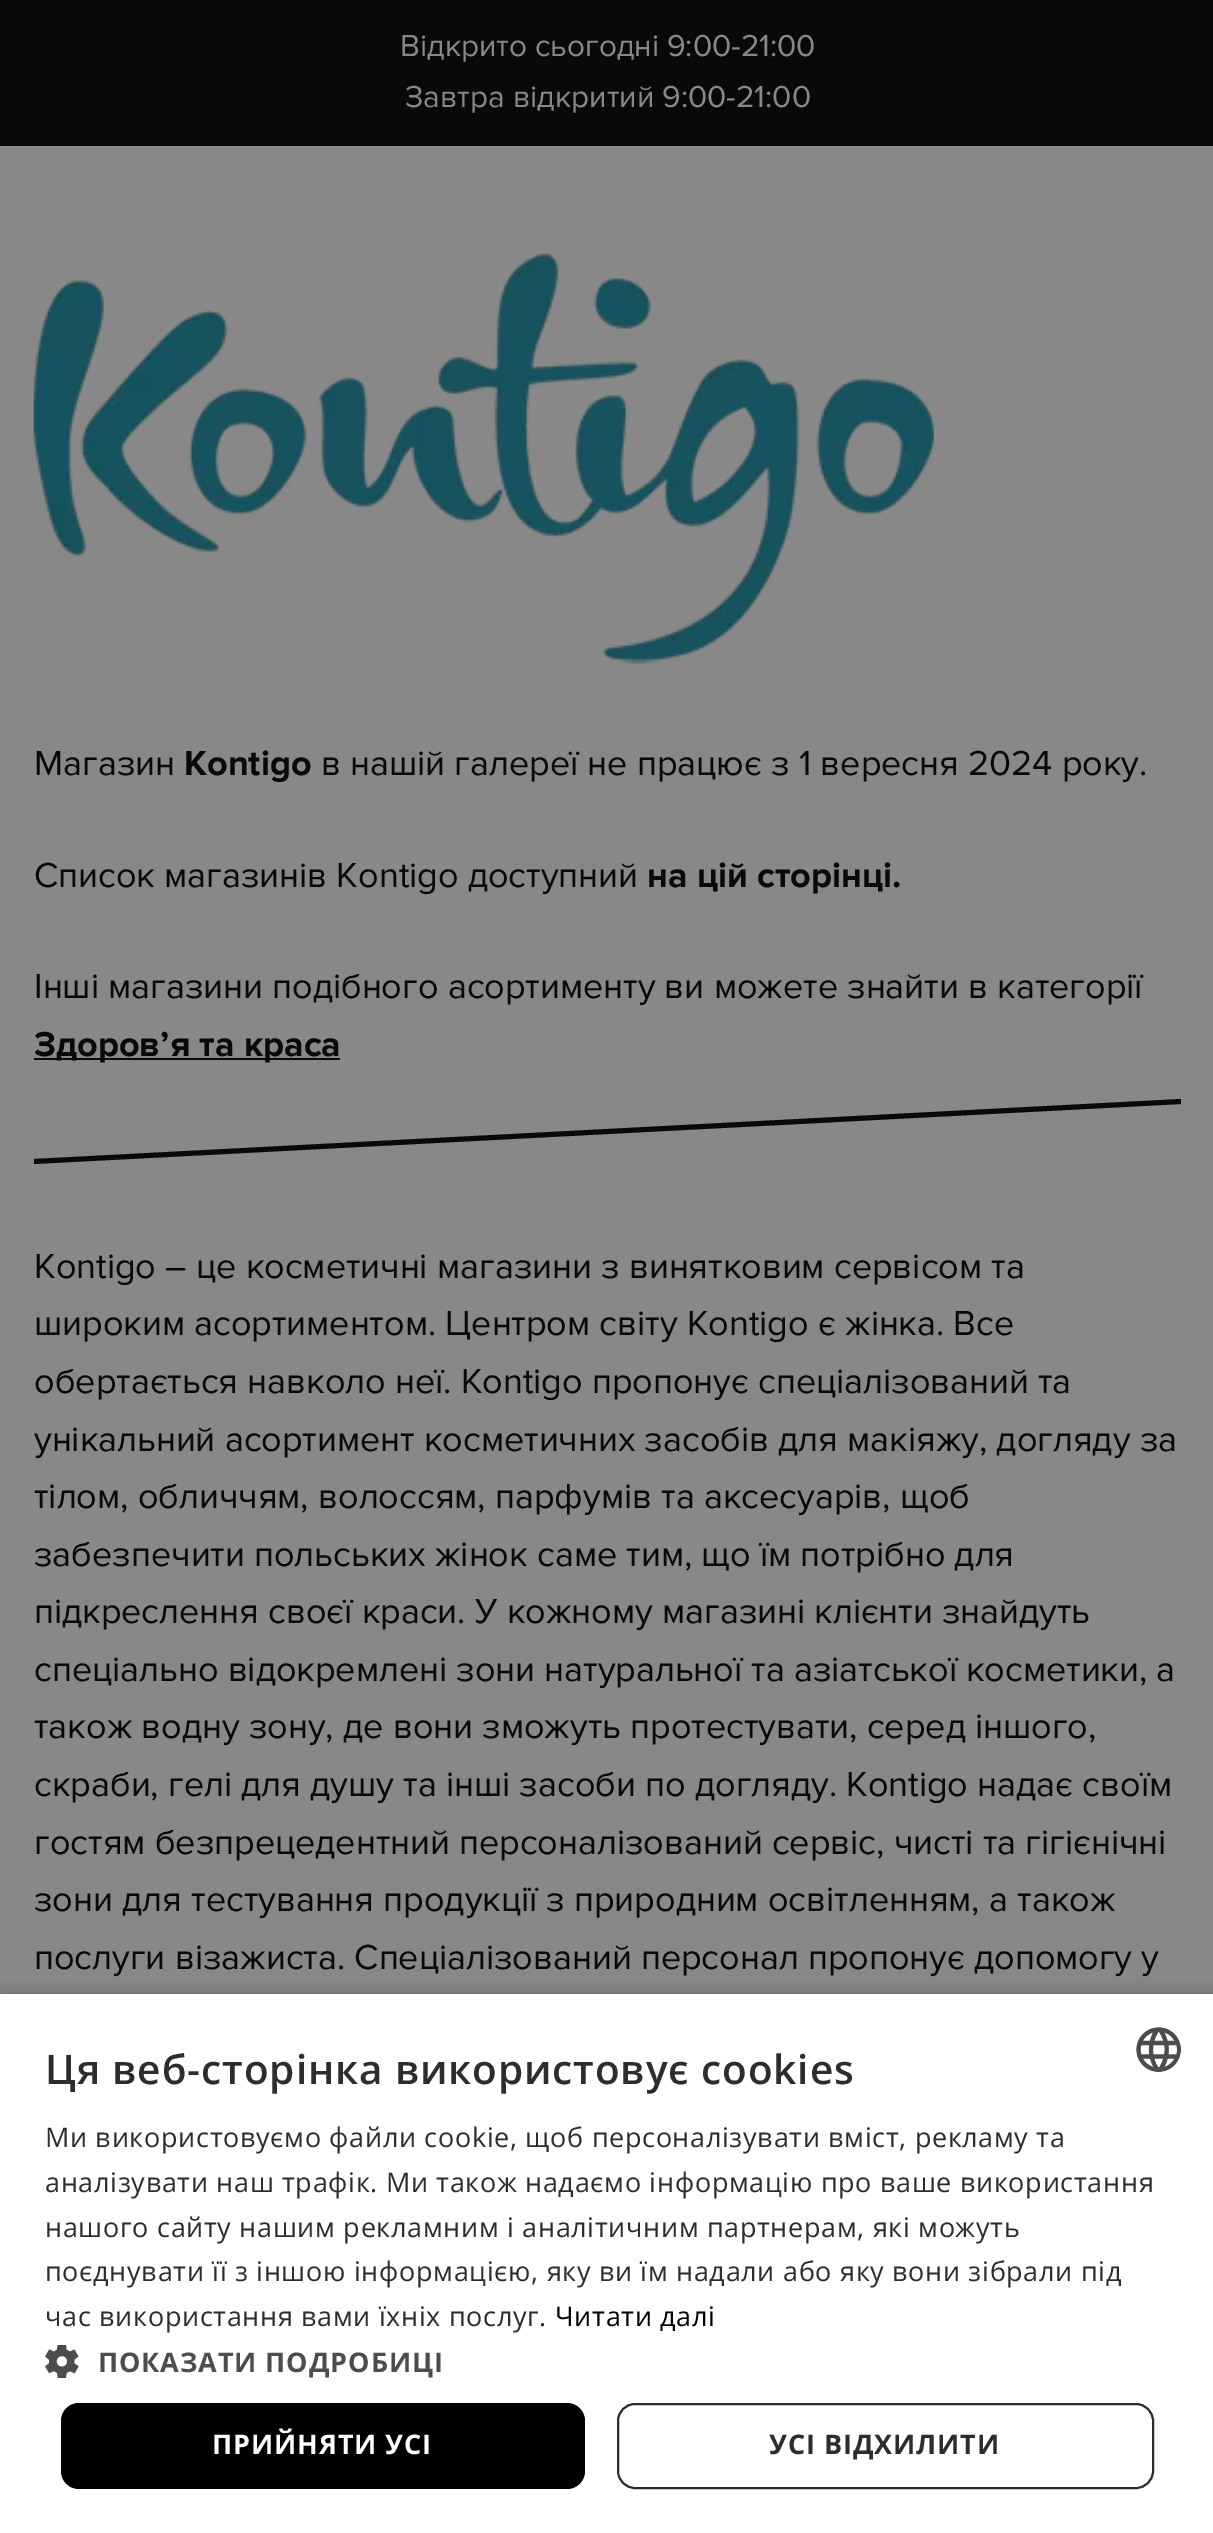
%!PS
<< /PageSize [1213 2533] /PageUsesTransparency true >> setpagedevice
/mt/moveto load def
/li/lineto load def
/cp/closepath load def
/fl/fill load def
/st/stroke load def
/lw/setlinewidth load def
/co { dup -16 bitshift 255 div exch dup -8 bitshift 255 and 255 div exch 255 and 255 div setrgbcolor } def
/fn { [ exch dup neg 0 0 3 -1 roll 0 0 ] selectfont } def
/tx { co fn moveto show } def
/bx { co rectfill } def
/al { dup .setfillconstantalpha .setstrokeconstantalpha } def
/rr { 5 dict begin { /r /h /w /y /x } { exch def } forall
  x r add y moveto x w add y 2 copy h add r arct x w add y h add x 1 index r arct
  x y h add x y r arct x y 2 copy exch w add exch r arct closepath end } def
/sh { 12 dict begin { /a /b /q /h /w /y /x } { exch def } forall gsave /was 0 def
  9 -2 -9 { dup b mul 4 div /e exch def 1 sub .425 mul 2.718 exch exp 1 add a .99 .min exch div /now exch def
    1 1 now sub 1 was sub div sub al /was now def
    w h .min e 2 mul add 0 gt { x e sub y e sub w e 2 mul add h e 2 mul add
      q e add b .6 mul add w h .min 2 div e add .min 0 .max rr fill } if } for grestore end } def
/im { 5 dict begin { /h /w /y /x /name } { exch def } forall
  gsave x y translate w h scale
  w h 8 [w 0 0 h 0 0] name (r) file false 3 colorimage grestore end } def
0 .pushpdf14devicefilter
0 2533 translate 1 -1 scale
4 setmiterlimit
0 0 1213 2533 16#888888 bx
0 0 1213 146 16#090909 bx
(media/1.raw) 33 253 901 411 im
34 1058 306 2 16#090909 bx
34 1159 mt 1181 1099 li 1181 1104 li 34 1164 li cp fl
16#000000 co
2 1998 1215 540 0 9 .35 sh
0 1994 1213 539 16#FFFFFF bx
(media/2.raw) 45 2345 34 33 im
16#000000 co
61 2403 524 86 18 rr fl
16#2D2D2D co
2 lw
618 2404 535 84 17 rr st
(media/3.raw) 1136 2027 45 45 im
(Відкрито сьогодні 9:00-21:00) 400 56 /ProximaNova-Regular 31.5 16#888888 tx
(Завтра відкритий 9:00-21:00) 405 107 /ProximaNova-Regular 31.5 16#888888 tx
(Магазин) 34 775 /ProximaNova-Regular 36 16#090909 tx
(Kontigo) 184 775 /ProximaNova-Bold 36 16#090909 tx
(в нашій галереї не працює з 1 вересня 2024 року.) 321 775 /ProximaNova-Regular 36 16#090909 tx
(Список магазинів Kontigo доступний) 34 887 /ProximaNova-Regular 36 16#090909 tx
(на цій сторінці.) 647 887 /ProximaNova-Bold 36 16#090909 tx
(Інші магазини подібного асортименту ви можете знайти в категорії) 34 998 /ProximaNova-Regular 36 16#090909 tx
(Здоров’я та краса) 34 1056 /ProximaNova-Bold 36 16#090909 tx
(Kontigo – це косметичні магазини з винятковим сервісом та) 34 1278 /ProximaNova-Regular 36 16#090909 tx
(широким асортиментом. Центром світу Kontigo є жінка. Все) 34 1335 /ProximaNova-Regular 36 16#090909 tx
(обертається навколо неї. Kontigo пропонує спеціалізований та) 34 1393 /ProximaNova-Regular 36 16#090909 tx
(унікальний асортимент косметичних засобів для макіяжу, догляду за) 34 1451 /ProximaNova-Regular 36 16#090909 tx
(тілом, обличчям, волоссям, парфумів та аксесуарів, щоб) 34 1508 /ProximaNova-Regular 36 16#090909 tx
(забезпечити польських жінок саме тим, що їм потрібно для) 34 1566 /ProximaNova-Regular 36 16#090909 tx
(підкреслення своєї краси. У кожному магазині клієнти знайдуть) 34 1623 /ProximaNova-Regular 36 16#090909 tx
(спеціально відокремлені зони натуральної та азіатської косметики, а) 34 1681 /ProximaNova-Regular 36 16#090909 tx
(також водну зону, де вони зможуть протестувати, серед іншого,) 34 1738 /ProximaNova-Regular 36 16#090909 tx
(скраби, гелі для душу та інші засоби по догляду. Kontigo надає своїм) 34 1796 /ProximaNova-Regular 36 16#090909 tx
(гостям безпрецедентний персоналізований сервіс, чисті та гігієнічні) 34 1854 /ProximaNova-Regular 36 16#090909 tx
(зони для тестування продукції з природним освітленням, а також) 34 1911 /ProximaNova-Regular 36 16#090909 tx
(послуги візажиста. Спеціалізований персонал пропонує допомогу у) 34 1969 /ProximaNova-Regular 36 16#090909 tx
/OpenSans-SemiBold 40.5 fn
16#2D2D2D co
45 2084 mt .9 0 (Ця веб-сторінка використовує cookies) ashow
/OpenSans-Regular 27 fn
45 2147 mt .67 0 (Ми використовуємо файли cookie, щоб персоналізувати вміст, рекламу та) ashow
45 2192 mt .67 0 (аналізувати наш трафік. Ми також надаємо інформацію про ваше використання) ashow
45 2237 mt .67 0 (нашого сайту нашим рекламним і аналітичним партнерам, які можуть) ashow
45 2281 mt .67 0 (поєднувати її з іншою інформацією, яку ви їм надали або яку вони зібрали під) ashow
45 2326 mt .67 0 (час використання вами їхніх послуг.) ashow
16#000000 co
555 2326 mt .67 0 (Читати далі) ashow
/OpenSans-Bold 27 fn
16#4D4D4D co
98 2372 mt .9 0 (ПОКАЗАТИ ПОДРОБИЦІ) ashow
16#FFFFFF co
212 2454 mt .9 0 (ПРИЙНЯТИ УСІ) ashow
16#2D2D2D co
769 2454 mt .9 0 (УСІ ВІДХИЛИТИ) ashow
.poppdf14devicefilter showpage
